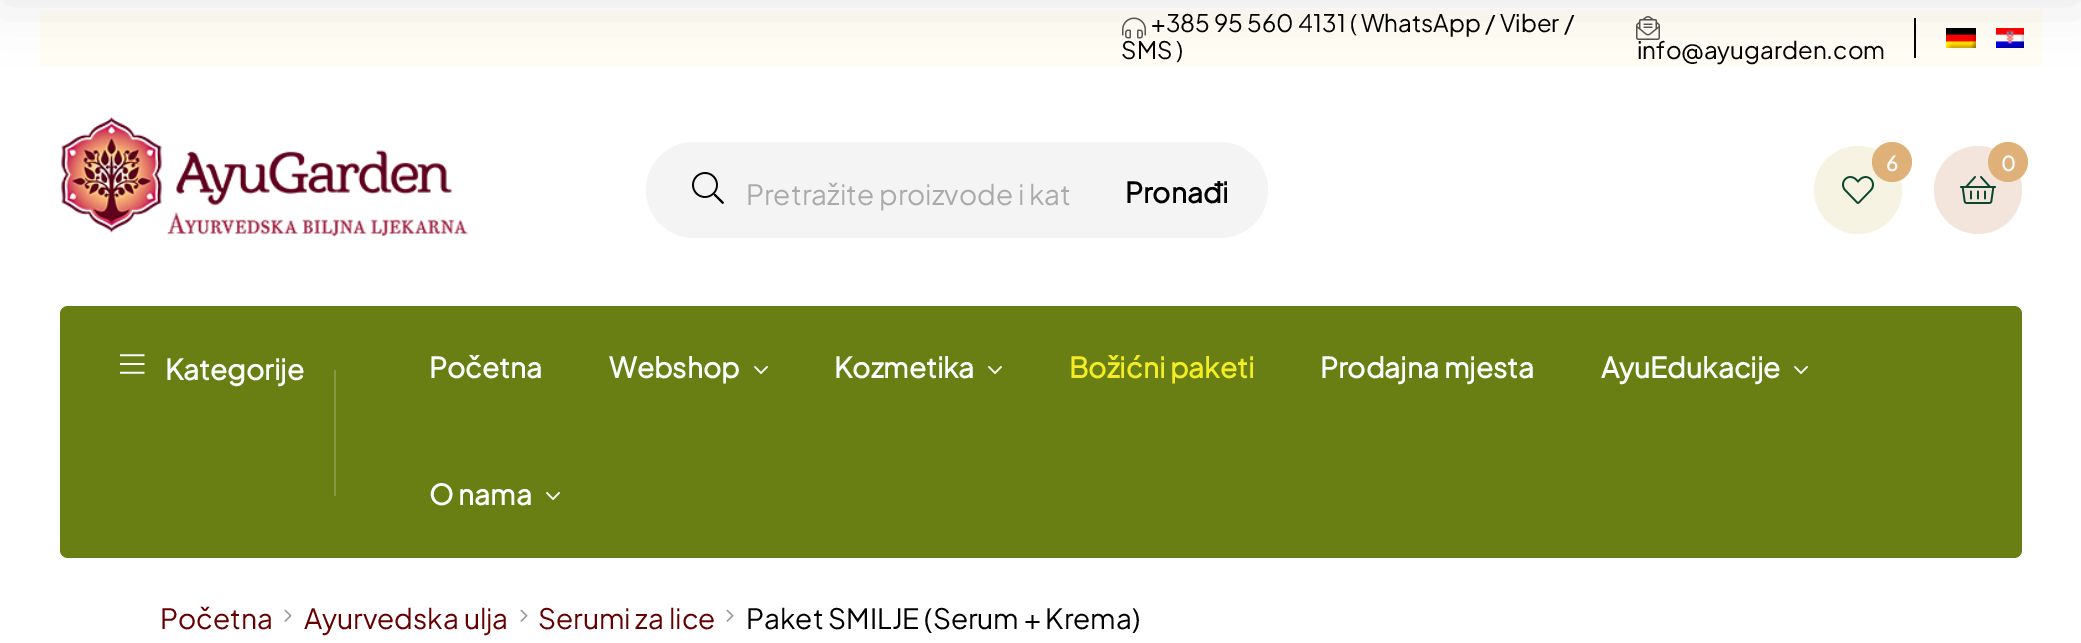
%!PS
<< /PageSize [2081 643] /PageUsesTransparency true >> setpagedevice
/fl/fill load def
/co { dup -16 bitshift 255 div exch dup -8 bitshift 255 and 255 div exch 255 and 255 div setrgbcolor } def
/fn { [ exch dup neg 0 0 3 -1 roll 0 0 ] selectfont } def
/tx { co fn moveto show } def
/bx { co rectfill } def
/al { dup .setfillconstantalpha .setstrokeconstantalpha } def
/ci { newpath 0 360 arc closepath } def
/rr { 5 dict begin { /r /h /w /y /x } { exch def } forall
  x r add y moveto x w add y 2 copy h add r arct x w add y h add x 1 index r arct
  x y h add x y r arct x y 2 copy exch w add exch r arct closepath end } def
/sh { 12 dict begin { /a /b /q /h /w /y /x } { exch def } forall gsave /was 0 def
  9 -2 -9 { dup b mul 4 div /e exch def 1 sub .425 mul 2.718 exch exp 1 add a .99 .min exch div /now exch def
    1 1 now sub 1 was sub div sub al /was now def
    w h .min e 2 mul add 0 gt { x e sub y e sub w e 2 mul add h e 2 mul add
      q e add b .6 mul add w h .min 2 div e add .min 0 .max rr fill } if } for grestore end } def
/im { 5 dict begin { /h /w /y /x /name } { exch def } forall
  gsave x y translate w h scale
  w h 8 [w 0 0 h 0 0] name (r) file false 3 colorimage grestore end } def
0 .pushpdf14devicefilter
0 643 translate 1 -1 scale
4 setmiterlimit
0 0 2081 643 16#FFFFFF bx
40 10 2002 56 16#FFFDF4 bx
(media/1.raw) 1122 17 24 22 im
(media/2.raw) 1636 16 24 24 im
1914 18 2 40 16#000000 bx
(media/3.raw) 1946 28 30 20 im
(media/4.raw) 1996 28 28 20 im
0 -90 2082 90 0 30 .1 sh
(media/5.raw) 61 117 407 120 im
16#F6F3E3 co
1858 190 44 ci fl
(media/6.raw) 1842 176 32 28 im
16#DFB178 co
1892 162 20 ci fl
16#F3E4DC co
1978 190 44 ci fl
(media/7.raw) 1960 176 36 28 im
16#DFB178 co
2008 162 20 ci fl
16#F4F4F4 co
646 142 622 96 48 rr fl
(media/8.raw) 692 172 32 32 im
16#697F13 co
60 306 1962 252 8 rr fl
(media/9.raw) 120 354 25 20 im
334 370 2 126 16#879942 bx
(media/10.raw) 754 366 14 8 im
(media/10.raw) 988 366 14 8 im
(media/10.raw) 1794 366 14 8 im
(media/10.raw) 546 492 14 8 im
(media/11.raw) 284 609 8 13 im
(media/11.raw) 520 609 8 13 im
(media/11.raw) 726 609 8 13 im
(+385 95 560 4131 \( WhatsApp / Viber /) 1151 32 /PlusJakartaSans-Regular 24 16#000000 tx
(SMS \)) 1121 59 /PlusJakartaSans-Regular 24 16#000000 tx
(info@ayugarden.com) 1637 59 /PlusJakartaSans-Regular 24 16#000000 tx
(6) 1886 171 /PlusJakartaSans-Bold 20 16#FFFFFF tx
(0) 2001 171 /PlusJakartaSans-Bold 20 16#FFFFFF tx
(Pretražite proizvode i kat) 746 205 /PlusJakartaSans-Regular 28 16#AAAAAA tx
(Pronađi) 1125 203 /PlusJakartaSans-Bold 28 16#000000 tx
(Kategorije) 165 380 /PlusJakartaSans-Bold 28 16#FFFFFF tx
(Početna) 429 378 /PlusJakartaSans-Bold 28 16#FFFFFF tx
(Webshop) 609 378 /PlusJakartaSans-Bold 28 16#FFFFFF tx
(Kozmetika) 834 378 /PlusJakartaSans-Bold 28 16#FFFFFF tx
(Božićni paketi) 1069 378 /PlusJakartaSans-Bold 28 16#F4ED23 tx
(Prodajna mjesta) 1320 378 /PlusJakartaSans-Bold 28 16#FFFFFF tx
(AyuEdukacije) 1601 378 /PlusJakartaSans-Bold 28 16#FFFFFF tx
(O nama) 429 505 /PlusJakartaSans-Bold 28 16#FFFFFF tx
(Početna) 160 629 /PlusJakartaSans-Regular 28 16#660000 tx
(Ayurvedska ulja) 304 629 /PlusJakartaSans-Regular 28 16#660000 tx
(Serumi za lice) 538 629 /PlusJakartaSans-Regular 28 16#660000 tx
(Paket SMILJE \(Serum + Krema\)) 746 629 /PlusJakartaSans-Regular 28 16#000000 tx
.poppdf14devicefilter showpage
